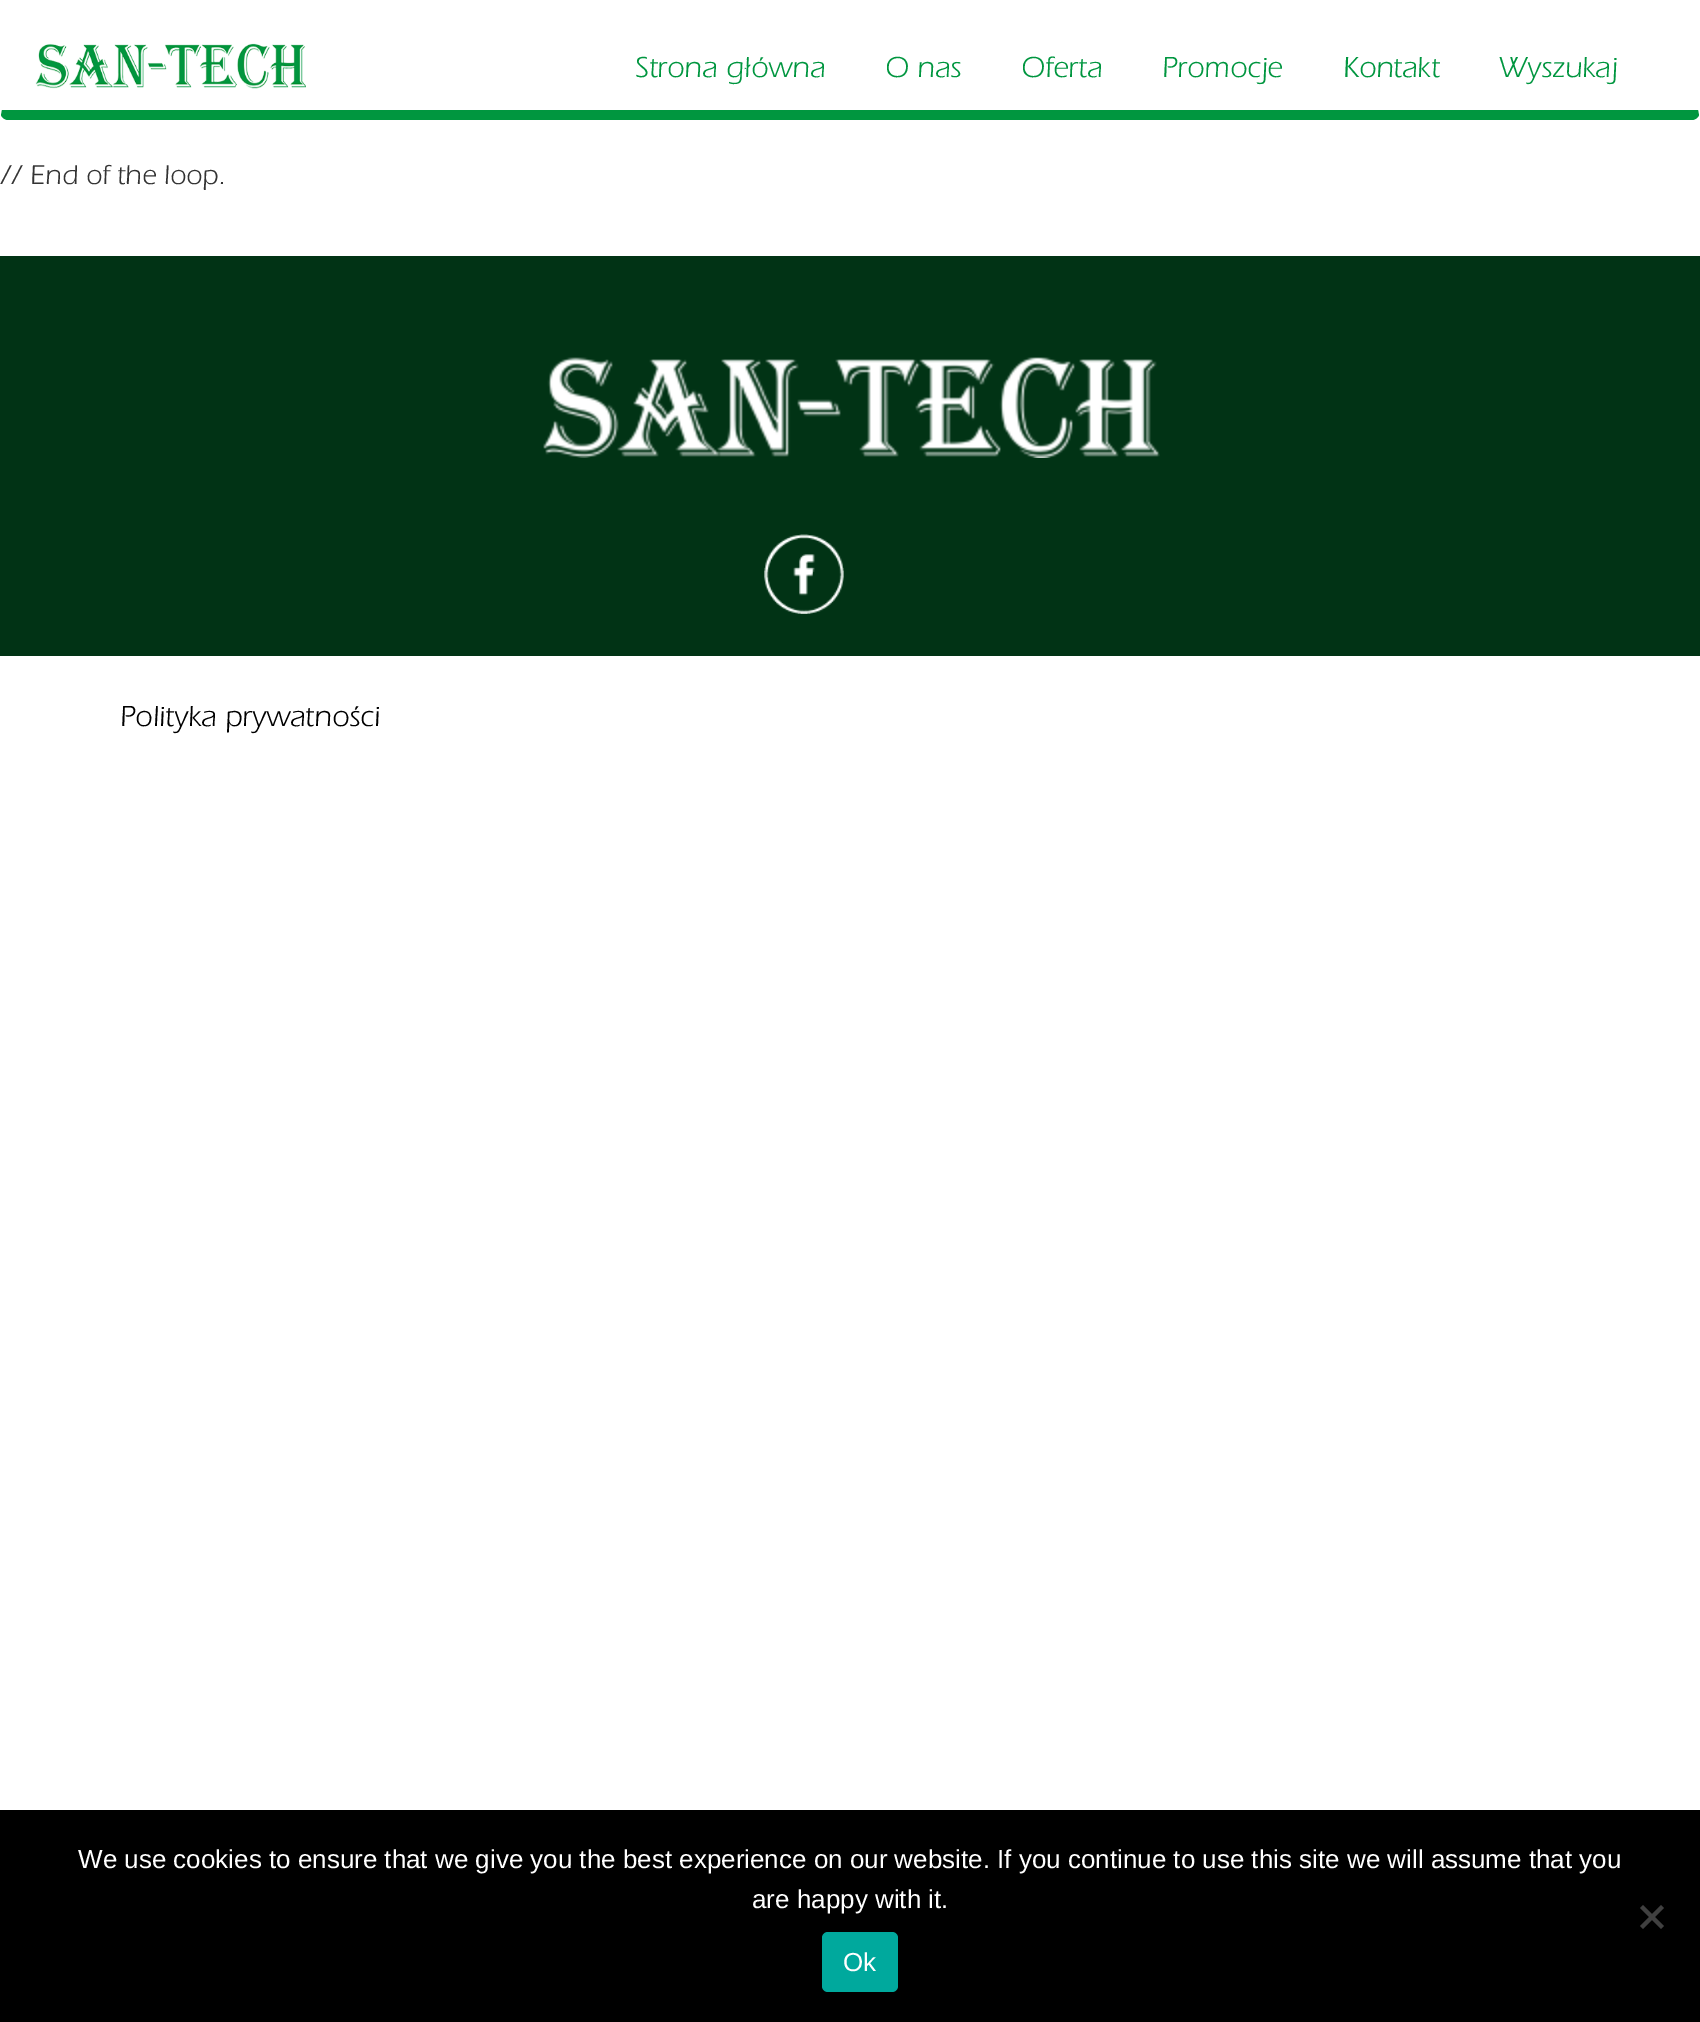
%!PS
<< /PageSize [1700 2022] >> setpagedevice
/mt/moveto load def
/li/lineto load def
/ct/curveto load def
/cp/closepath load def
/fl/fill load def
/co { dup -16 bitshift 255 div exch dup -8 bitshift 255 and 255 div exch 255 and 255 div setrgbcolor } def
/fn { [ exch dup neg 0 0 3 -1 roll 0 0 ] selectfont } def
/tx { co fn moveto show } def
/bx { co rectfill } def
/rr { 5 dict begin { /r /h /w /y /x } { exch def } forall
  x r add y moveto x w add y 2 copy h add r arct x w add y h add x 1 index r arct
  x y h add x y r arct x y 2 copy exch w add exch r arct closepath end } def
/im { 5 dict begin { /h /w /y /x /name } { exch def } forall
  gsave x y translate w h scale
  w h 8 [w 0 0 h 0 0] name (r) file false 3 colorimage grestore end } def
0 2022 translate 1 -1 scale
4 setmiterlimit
0 0 1700 2022 16#FFFFFF bx
16#00963F co
8 120 mt 1692 120 li 1695 120 1698 118 1699 115 ct 1698 110 li 2 110 li 1 115 li 2 118 5 120 8 120 ct cp fl
(media/1.raw) 35 43 271 46 im
0 256 1700 400 16#013315 bx
(media/2.raw) 543 357 617 101 im
(media/3.raw) 764 534 80 80 im
0 1810 1700 212 16#000000 bx
16#404040 co
1661 1905 mt 1664 1908 li 1643 1929 li 1640 1926 li cp fl
1640 1908 mt 1643 1905 li 1664 1926 li 1661 1929 li cp fl
16#00A99D co
822 1932 76 60 6 rr fl
(Strona główna) 635 77 /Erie-Regular 30 16#00963F tx
(O nas) 885 77 /Erie-Regular 30 16#00963F tx
(Oferta) 1021 77 /Erie-Regular 30 16#00963F tx
(Promocje) 1162 77 /Erie-Regular 30 16#00963F tx
(Kontakt) 1343 77 /Erie-Regular 30 16#00963F tx
(Wyszukaj) 1499 77 /Erie-Regular 30 16#00963F tx
(// End of the loop.) 0 184 /Erie-Regular 28 16#333333 tx
(Polityka prywatności) 120 726 /Erie-Regular 30 16#000000 tx
(We use cookies to ensure that we give you the best experience on our website. If you continue to use this site we will assume that you) 78 1868 /LiberationSans-Regular 26 16#FFFFFF tx
(are happy with it.) 752 1908 /LiberationSans-Regular 26 16#FFFFFF tx
(Ok) 843 1971 /LiberationSans-Regular 26 16#FFFFFF tx
showpage
